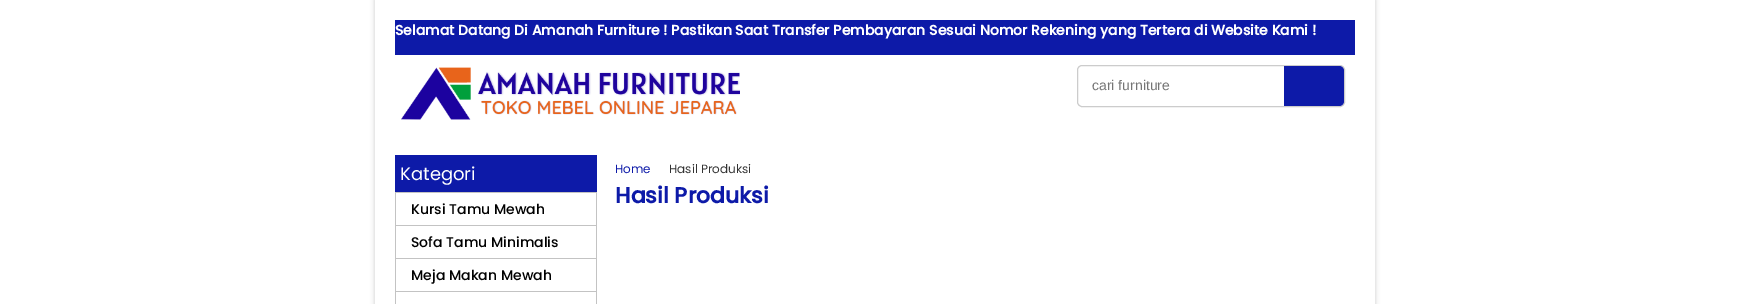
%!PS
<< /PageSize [1750 304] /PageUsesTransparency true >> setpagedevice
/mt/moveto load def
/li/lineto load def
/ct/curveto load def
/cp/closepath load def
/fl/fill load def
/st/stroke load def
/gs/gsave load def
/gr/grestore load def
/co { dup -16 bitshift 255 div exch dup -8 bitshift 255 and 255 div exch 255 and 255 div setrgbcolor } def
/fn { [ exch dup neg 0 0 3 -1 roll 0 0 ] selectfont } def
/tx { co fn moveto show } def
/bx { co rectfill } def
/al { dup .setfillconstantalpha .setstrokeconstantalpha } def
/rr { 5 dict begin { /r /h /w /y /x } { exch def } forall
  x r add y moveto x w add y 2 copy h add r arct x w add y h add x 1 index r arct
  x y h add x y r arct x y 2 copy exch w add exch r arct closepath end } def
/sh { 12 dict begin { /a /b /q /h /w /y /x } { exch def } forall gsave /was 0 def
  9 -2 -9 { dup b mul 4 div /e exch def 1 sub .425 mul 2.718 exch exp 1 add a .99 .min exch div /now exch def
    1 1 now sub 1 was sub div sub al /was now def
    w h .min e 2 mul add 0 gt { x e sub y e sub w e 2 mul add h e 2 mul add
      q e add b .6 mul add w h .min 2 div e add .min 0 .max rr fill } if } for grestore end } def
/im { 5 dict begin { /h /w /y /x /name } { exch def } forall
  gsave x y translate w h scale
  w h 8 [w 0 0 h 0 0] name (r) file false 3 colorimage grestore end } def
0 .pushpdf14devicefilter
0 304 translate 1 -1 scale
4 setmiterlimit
0 0 1750 304 16#FFFFFF bx
gs
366 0 mt 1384 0 li 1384 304 li 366 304 li cp 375 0 mt 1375 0 li 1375 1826 li 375 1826 li cp eoclip newpath
16#000000 co
375 0 1000 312 0 2.5 .2 sh
gr
395 20 960 35 16#0D1AA8 bx
(media/1.raw) 401 67 339 53 im
16#CCCCCC co
1077.5 65.5 267 41 4.5 rr st
16#0D1AA8 co
1284 66 mt 1339 66 li 1342 66 1344 68 1344 71 ct 1344 101 li 1344 104 1342 106 1339 106 ct 1284 106 li cp fl
395 155 202 37 16#0D1AA8 bx
395 192 202 1 16#C3C3C3 bx
596 193 1 111 16#C3C3C3 bx
395 225 202 1 16#C3C3C3 bx
395 193 1 33 16#C3C3C3 bx
395 258 202 1 16#C3C3C3 bx
395 226 1 33 16#C3C3C3 bx
395 291 202 1 16#C3C3C3 bx
395 259 1 45 16#C3C3C3 bx
(Selamat Datang Di Amanah Furniture ! Pastikan Saat Transfer Pembayaran Sesuai Nomor Rekening yang Tertera di Website Kami !) 395 35 /Poppins-Bold 14 16#FFFFFF tx
(cari furniture) 1092 90 /LiberationSans-Regular 14 16#757575 tx
(Kategori) 400 180 /Poppins-Regular 18 16#FFFFFF tx
(Kursi Tamu Mewah) 411 214 /Poppins-Medium 14 16#000000 tx
(Sofa Tamu Minimalis) 411 247 /Poppins-Medium 14 16#000000 tx
(Meja Makan Mewah) 411 280 /Poppins-Medium 14 16#000000 tx
(Home) 615 173 /Poppins-Regular 12 16#0D1AA8 tx
(Hasil Produksi) 669 173 /Poppins-Regular 12 16#333333 tx
(Hasil Produksi) 615 203 /Poppins-Bold 22 16#0D1AA8 tx
.poppdf14devicefilter showpage
